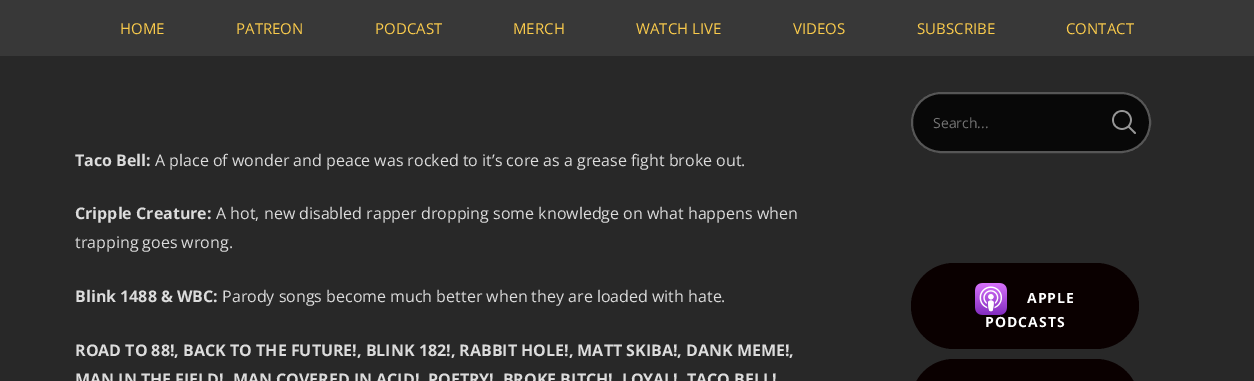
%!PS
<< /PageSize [1254 381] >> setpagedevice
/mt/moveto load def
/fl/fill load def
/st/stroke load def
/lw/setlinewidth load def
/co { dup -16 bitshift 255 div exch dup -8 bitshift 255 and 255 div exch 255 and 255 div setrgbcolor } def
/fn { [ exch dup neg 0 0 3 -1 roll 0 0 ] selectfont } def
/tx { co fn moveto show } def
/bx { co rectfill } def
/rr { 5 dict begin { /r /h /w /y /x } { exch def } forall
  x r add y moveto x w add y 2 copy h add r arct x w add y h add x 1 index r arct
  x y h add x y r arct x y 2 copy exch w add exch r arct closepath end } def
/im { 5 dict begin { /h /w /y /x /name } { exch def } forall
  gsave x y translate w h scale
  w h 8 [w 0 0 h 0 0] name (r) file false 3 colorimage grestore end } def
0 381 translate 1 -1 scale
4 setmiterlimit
0 0 1254 381 16#282828 bx
0 0 1254 56 16#383838 bx
16#080808 co
911 92 240 61 30 rr fl
(media/1.raw) 1112 110 24 24 im
16#565656 co
2 lw
912 93 238 59 29 rr st
16#0A0000 co
911 263 228 86 43 rr fl
(media/2.raw) 975 283 32 32 im
911 359 228 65 43 rr fl
(HOME) 120 34 /OpenSans-Regular 15 16#FACB4C tx
(PATREON) 236 34 /OpenSans-Regular 15 16#FACB4C tx
(PODCAST) 375 34 /OpenSans-Regular 15 16#FACB4C tx
(MERCH) 513 34 /OpenSans-Regular 15 16#FACB4C tx
(WATCH LIVE) 636 34 /OpenSans-Regular 15 16#FACB4C tx
(VIDEOS) 793 34 /OpenSans-Regular 15 16#FACB4C tx
(SUBSCRIBE) 917 34 /OpenSans-Regular 15 16#FACB4C tx
(CONTACT) 1066 34 /OpenSans-Regular 15 16#FACB4C tx
(Taco Bell:) 75 166 /OpenSans-Bold 16 16#DCDCDC tx
(A place of wonder and peace was rocked to it’s core as a grease fight broke out.) 155 166 /OpenSans-Regular 16 16#DCDCDC tx
(Cripple Creature:) 75 219 /OpenSans-Bold 16 16#DCDCDC tx
(A hot, new disabled rapper dropping some knowledge on what happens when) 216 219 /OpenSans-Regular 16 16#DCDCDC tx
(trapping goes wrong.) 75 248 /OpenSans-Regular 16 16#DCDCDC tx
(Blink 1488 & WBC:) 75 302 /OpenSans-Bold 16 16#DCDCDC tx
(Parody songs become much better when they are loaded with hate.) 222 302 /OpenSans-Regular 16 16#DCDCDC tx
(ROAD TO 88!, BACK TO THE FUTURE!, BLINK 182!, RABBIT HOLE!, MATT SKIBA!, DANK MEME!,) 75 356 /OpenSans-Bold 16 16#DCDCDC tx
(MAN IN THE FIELD!, MAN COVERED IN ACID!, POETRY!, BROKE BITCH!, LOYAL!, TACO BELL!) 75 385 /OpenSans-Bold 16 16#DCDCDC tx
(Search...) 933 128 /OpenSans-Regular 14 16#757575 tx
/OpenSans-Bold 14 fn
16#FFFFFF co
1027 303 mt 1 0 (APPLE) ashow
985 327 mt 1 0 (PODCASTS) ashow
showpage
